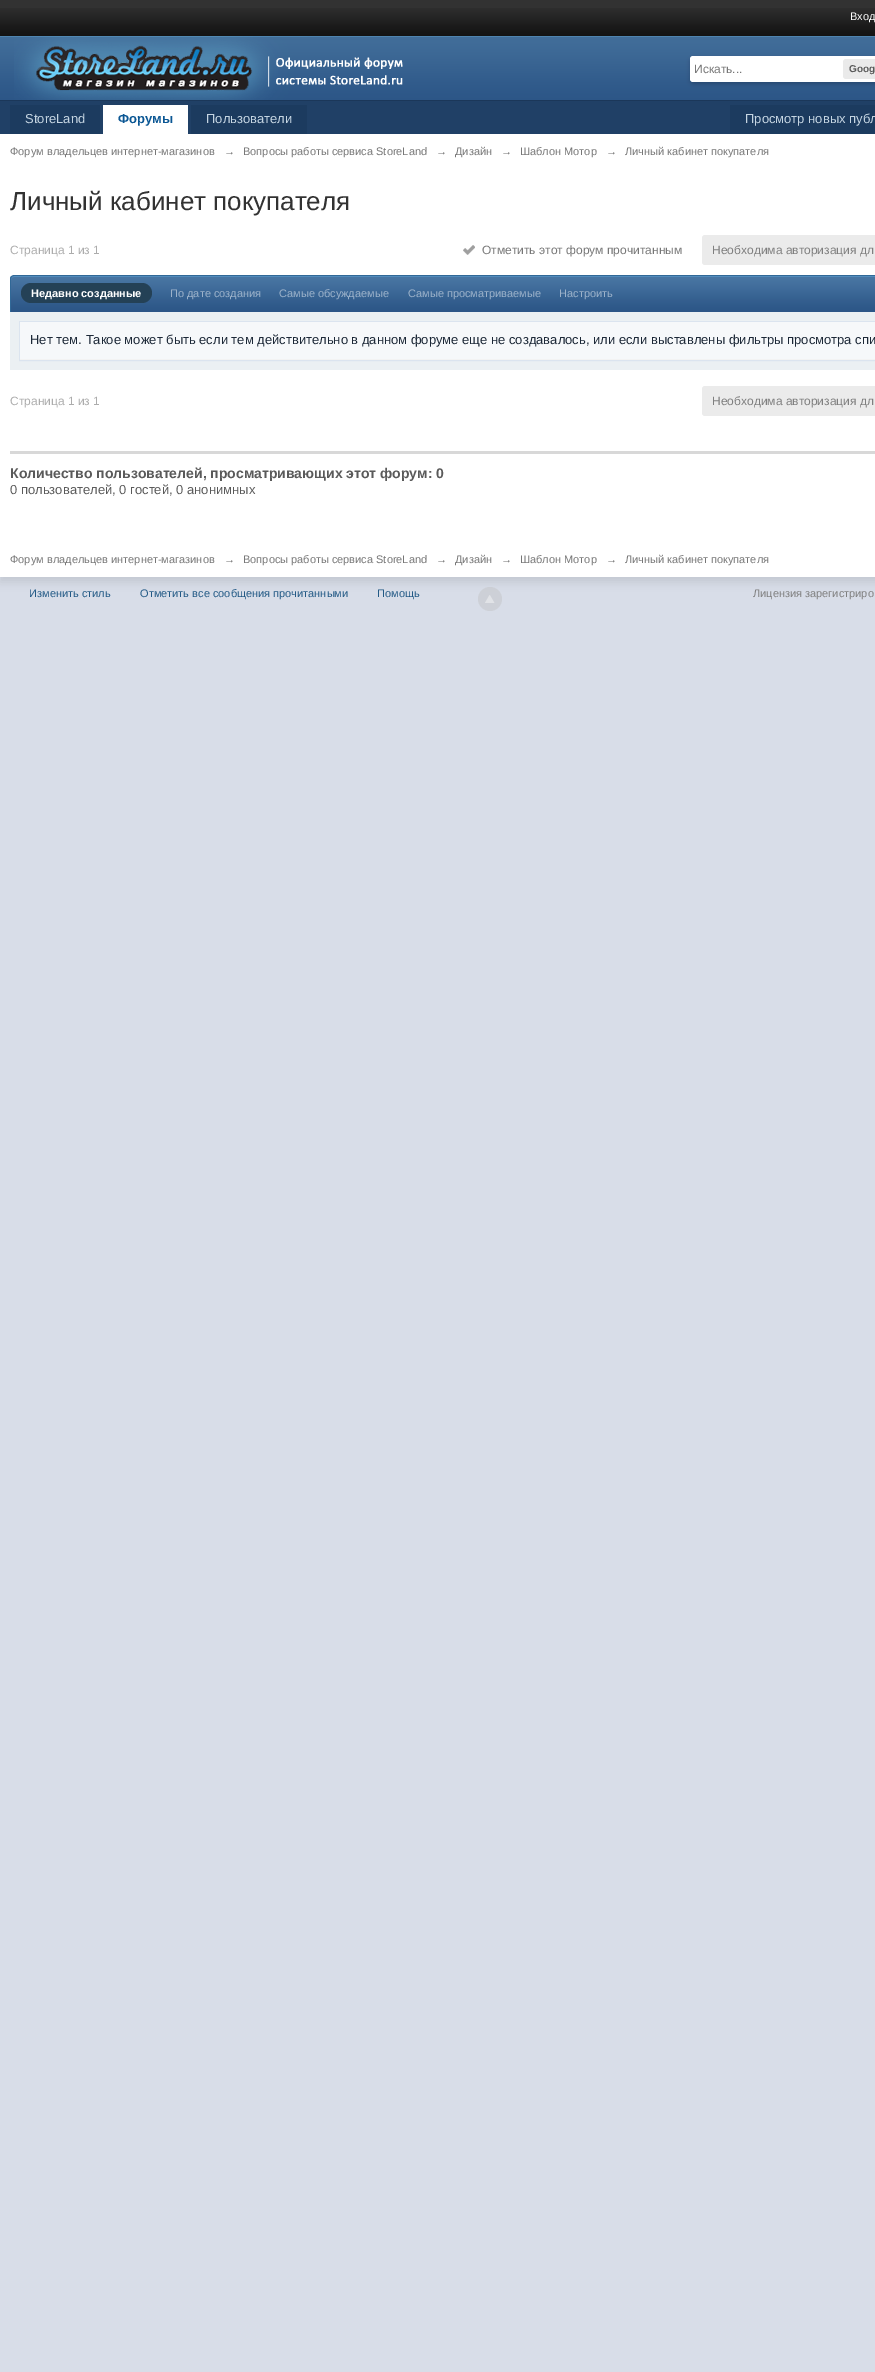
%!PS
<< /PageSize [875 2372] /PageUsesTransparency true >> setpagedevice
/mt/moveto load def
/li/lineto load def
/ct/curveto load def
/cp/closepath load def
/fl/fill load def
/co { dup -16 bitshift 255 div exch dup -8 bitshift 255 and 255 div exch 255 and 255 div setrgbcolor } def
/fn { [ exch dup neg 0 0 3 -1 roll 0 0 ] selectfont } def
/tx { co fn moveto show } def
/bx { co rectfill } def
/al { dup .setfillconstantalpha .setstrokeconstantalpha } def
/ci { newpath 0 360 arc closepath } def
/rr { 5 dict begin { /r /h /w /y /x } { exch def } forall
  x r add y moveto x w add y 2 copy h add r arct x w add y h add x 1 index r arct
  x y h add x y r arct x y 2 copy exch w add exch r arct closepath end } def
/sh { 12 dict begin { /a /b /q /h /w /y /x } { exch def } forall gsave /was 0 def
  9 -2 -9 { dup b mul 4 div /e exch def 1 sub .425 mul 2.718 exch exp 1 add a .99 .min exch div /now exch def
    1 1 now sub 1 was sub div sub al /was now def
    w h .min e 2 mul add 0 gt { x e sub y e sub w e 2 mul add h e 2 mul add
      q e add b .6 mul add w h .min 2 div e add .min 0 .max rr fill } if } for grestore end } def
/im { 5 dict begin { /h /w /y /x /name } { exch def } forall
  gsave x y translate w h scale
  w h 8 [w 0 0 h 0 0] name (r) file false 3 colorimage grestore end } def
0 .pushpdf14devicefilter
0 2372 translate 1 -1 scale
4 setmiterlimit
0 0 875 2372 16#D8DDE8 bx
0 0 875 8 16#323232 bx
(media/1.raw) 0 8 875 28 im
(media/2.raw) 0 36 875 64 im
0 100 875 1 16#1B3759 bx
(media/3.raw) 14 36 389 64 im
16#000000 co
690 58 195 26 4 2 .2 sh
16#FFFFFF co
693 56 mt 875 56 li 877 56 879 58 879 60 ct 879 78 li 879 80 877 82 875 82 ct 693 82 li 691.5 82 690 80.5 690 79 ct 690 59 li 690 57.5 691.5 56 693 56 ct cp fl
16#EAEAEA co
843 59 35 20 3 rr fl
0 101 875 33 16#204066 bx
16#000000 co
0 139 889 443 0 4.5 .1 sh
10 105 90 29 16#1C3B5F bx
103 105 85 29 16#FFFFFF bx
191 105 116 29 16#1C3B5F bx
730 105 145 29 16#1C3B5F bx
0 134 875 443 16#FFFFFF bx
(media/4.raw) 463 245 12 10 im
16#EBEBEB co
702 235 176 30 3 rr fl
11 311 864 1 16#2C5687 bx
(media/5.raw) 10 276 865 35 im
16#528CBC co
14 277 mt 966 277 li 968 277 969 278 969 280 ct 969 278 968 276 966 276 ct 14 276 li 12 276 11 278 11 280 ct 11 278 12 277 14 277 ct cp fl
16#316897 co
14 275 mt 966 275 li 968 275 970 277 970 279 ct 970 312 li 10 312 li 10 279 li 10 277 12 275 14 275 ct cp 14 276 mt 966 276 li 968 276 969 277 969 279 ct 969 312 li 11 312 li 11 279 li 11 277 12 276 14 276 ct cp eofill
16#244156 co
21 283 131 20 10 rr fl
10 312 865 58 16#EBF0F3 bx
16#DBE4EF co
19.5 321.5 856 39 rectstroke
20 322 855 37 16#F6F8FA bx
20 359 855 1 16#F3F3F3 bx
16#EBEBEB co
702 386 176 30 3 rr fl
10 451 865 3 16#D8D8D8 bx
0.4 al
16#BDBDBD co
490 599 12 ci fl
1 al
(media/6.raw) 485 595 10 8 im
(Вход) 850 20 /LiberationSans-Regular 11 16#FFFFFF tx
(Искать...) 694 73 /LiberationSans-Regular 12 16#777777 tx
(Goog) 849 72 /LiberationSans-Bold 10 16#5A5A5A tx
(StoreLand) 25 123 /LiberationSans-Regular 13 16#C5D5E2 tx
(Форумы) 118 123 /LiberationSans-Bold 13 16#0B5794 tx
(Пользователи) 206 123 /LiberationSans-Regular 13 16#C5D5E2 tx
(Просмотр новых публ) 745 123 /LiberationSans-Regular 13 16#C5D5E2 tx
(Форум владельцев интернет-магазинов) 10 155 /LiberationSans-Regular 11 16#777777 tx
(→) 224 155 /LiberationSans-Regular 11 16#777777 tx
(Вопросы работы сервиса StoreLand) 243 155 /LiberationSans-Regular 11 16#777777 tx
(→) 436 155 /LiberationSans-Regular 11 16#777777 tx
(Дизайн) 455 155 /LiberationSans-Regular 11 16#777777 tx
(→) 501 155 /LiberationSans-Regular 11 16#777777 tx
(Шаблон Мотор) 520 155 /LiberationSans-Regular 11 16#777777 tx
(→) 606 155 /LiberationSans-Regular 11 16#777777 tx
(Личный кабинет покупателя) 625 155 /LiberationSans-Regular 11 16#777777 tx
(Личный кабинет покупателя) 10 210 /LiberationSans-Regular 26 16#323232 tx
(Страница 1 из 1) 10 254 /LiberationSans-Regular 12 16#ACACAC tx
(Отметить этот форум прочитанным) 482 254 /LiberationSans-Regular 12 16#777777 tx
(Необходима авторизация дл) 712 254 /LiberationSans-Regular 12 16#7F7F7F tx
(Недавно созданные) 31 297 /LiberationSans-Bold 11 16#FFFFFF tx
(По дате создания) 170 297 /LiberationSans-Regular 11 16#9CB2CA tx
(Самые обсуждаемые) 279 297 /LiberationSans-Regular 11 16#9CB2CA tx
(Самые просматриваемые) 408 297 /LiberationSans-Regular 11 16#9CB2CA tx
(Настроить) 559 297 /LiberationSans-Regular 11 16#9CB2CA tx
(Нет тем. Такое может быть если тем действительно в данном форуме еще не создавалось, или если выставлены фильтры просмотра спи) 30 344 /LiberationSans-Regular 13 16#1C2837 tx
(Страница 1 из 1) 10 405 /LiberationSans-Regular 12 16#ACACAC tx
(Необходима авторизация дл) 712 405 /LiberationSans-Regular 12 16#7F7F7F tx
(Количество пользователей, просматривающих этот форум: 0) 10 478 /LiberationSans-Bold 14 16#5A5A5A tx
(0 пользователей, 0 гостей, 0 анонимных) 10 494 /LiberationSans-Regular 13 16#5A5A5A tx
(Форум владельцев интернет-магазинов) 10 563 /LiberationSans-Regular 11 16#777777 tx
(→) 224 563 /LiberationSans-Regular 11 16#777777 tx
(Вопросы работы сервиса StoreLand) 243 563 /LiberationSans-Regular 11 16#777777 tx
(→) 436 563 /LiberationSans-Regular 11 16#777777 tx
(Дизайн) 455 563 /LiberationSans-Regular 11 16#777777 tx
(→) 501 563 /LiberationSans-Regular 11 16#777777 tx
(Шаблон Мотор) 520 563 /LiberationSans-Regular 11 16#777777 tx
(→) 606 563 /LiberationSans-Regular 11 16#777777 tx
(Личный кабинет покупателя) 625 563 /LiberationSans-Regular 11 16#777777 tx
(Изменить стиль) 29 597 /LiberationSans-Regular 11 16#225985 tx
(Отметить все сообщения прочитанными) 140 597 /LiberationSans-Regular 11 16#225985 tx
(Помощь) 377 597 /LiberationSans-Regular 11 16#225985 tx
(Лицензия зарегистриро) 753 597 /LiberationSans-Regular 11 16#7F7F7F tx
.poppdf14devicefilter showpage
